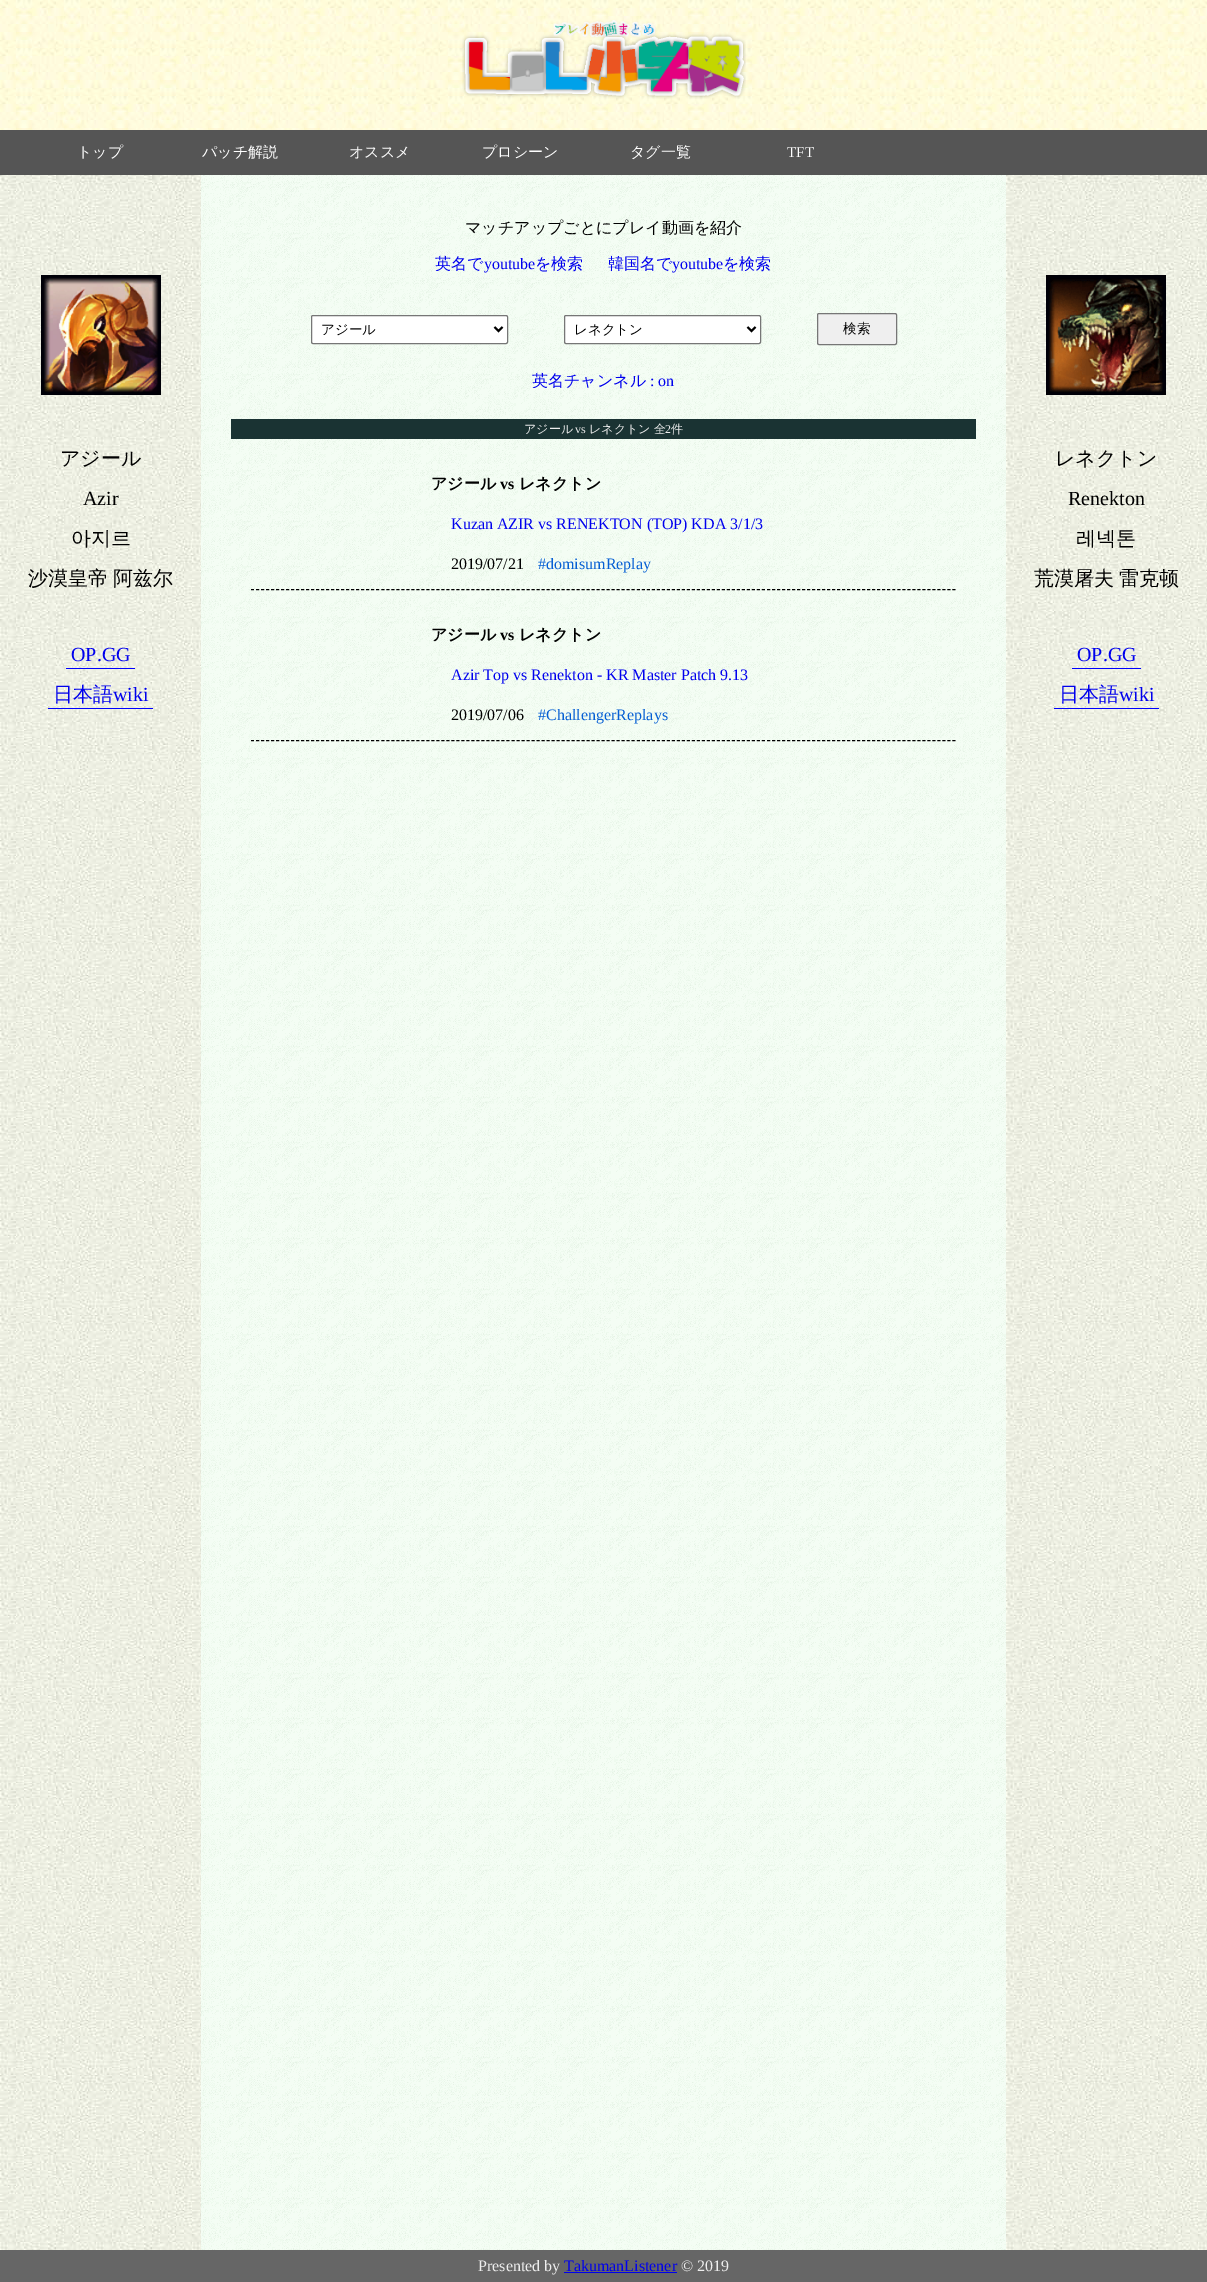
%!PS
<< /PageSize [1207 2282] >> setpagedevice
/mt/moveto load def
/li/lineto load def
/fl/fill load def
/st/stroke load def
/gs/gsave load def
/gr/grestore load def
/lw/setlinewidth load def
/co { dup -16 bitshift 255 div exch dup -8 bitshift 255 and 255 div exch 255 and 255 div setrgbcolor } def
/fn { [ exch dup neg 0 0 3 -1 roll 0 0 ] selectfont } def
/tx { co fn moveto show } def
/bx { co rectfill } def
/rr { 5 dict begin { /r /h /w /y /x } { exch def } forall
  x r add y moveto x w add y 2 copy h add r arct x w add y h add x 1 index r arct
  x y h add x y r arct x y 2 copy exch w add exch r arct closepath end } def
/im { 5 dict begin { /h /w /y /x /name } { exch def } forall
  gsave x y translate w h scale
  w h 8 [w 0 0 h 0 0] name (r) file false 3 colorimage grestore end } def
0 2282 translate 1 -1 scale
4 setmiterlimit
0 0 1207 2282 16#FFFFFF bx
(media/1.raw) 0 0 1207 130 im
(media/2.raw) 462 20 284 79 im
0 130 1207 45 16#555555 bx
(media/3.raw) 0 175 201 2075 im
(media/4.raw) 41 275 120 120 im
66 668 69 1 16#0000FF bx
48 708 105 1 16#0000FF bx
(media/5.raw) 201 175 805 2075 im
16#FFFFFF co
311.5 315.5 196 28 1.5 rr gs fl gr
16#767676 co
st
16#000000 co
2 lw
494.5 327 mt 498.5 331 li 502.5 327 li st
16#FFFFFF co
564.5 315.5 196 28 1.5 rr gs fl gr
16#767676 co
1 lw
st
16#000000 co
2 lw
747.5 327 mt 751.5 331 li 755.5 327 li st
16#EFEFEF co
817.5 313.5 79 31 1.5 rr gs fl gr
16#767676 co
1 lw
st
231 419 745 20 16#1A3333 bx
16#000000 co
[3 2.01] 0 setdash
251 589.5 mt 956 589.5 li st
251 740.5 mt 956 740.5 li st
(media/3.raw) 1006 175 201 2075 im
(media/6.raw) 1046 275 120 120 im
1072 668 69 1 16#0000FF bx
1054 708 105 1 16#0000FF bx
0 2250 1207 32 16#666666 bx
564 2272 113 1 16#0000EE bx
(トップ) 77 157 /WenQuanYiZenHei-Medium 15 16#FFFFFF tx
(パッチ解説) 202 157 /WenQuanYiZenHei-Medium 15 16#FFFFFF tx
(オススメ) 349 157 /WenQuanYiZenHei-Medium 15 16#FFFFFF tx
(プロシーン) 482 157 /WenQuanYiZenHei-Medium 15 16#FFFFFF tx
(タグ一覧) 630 157 /WenQuanYiZenHei-Medium 15 16#FFFFFF tx
(TFT) 787 157 /LiberationSerif-Regular 15 16#FFFFFF tx
(アジール) 60 465 /WenQuanYiZenHei-Medium 20 16#000000 tx
(Azir) 83 505 /LiberationSerif-Regular 20 16#000000 tx
(아지르) 71 545 /WenQuanYiZenHei-Medium 20 16#000000 tx
28 585 mt -1 0 32 (沙漠皇帝 阿兹尔) widthshow
(OP.GG) 71 661 /LiberationSerif-Regular 20 16#0000EE tx
(日本語) 53 701 /WenQuanYiZenHei-Medium 20 16#0000EE tx
(wiki) 113 701 /LiberationSerif-Regular 20 16#0000EE tx
(マッチアップごとにプレイ動画を紹介) 465 233 /WenQuanYiZenHei-Medium 16 16#000000 tx
(英名で) 435 269 /WenQuanYiZenHei-Medium 16 16#0000EE tx
(youtube) 484 269 /LiberationSerif-Regular 16 16#0000EE tx
(を検索) 535 269 /WenQuanYiZenHei-Medium 16 16#0000EE tx
(韓国名で) 608 269 /WenQuanYiZenHei-Medium 16 16#0000EE tx
(youtube) 672 269 /LiberationSerif-Regular 16 16#0000EE tx
(を検索) 723 269 /WenQuanYiZenHei-Medium 16 16#0000EE tx
(アジール) 321 334 /WenQuanYiZenHei-Medium 13.5 16#000000 tx
(レネクトン) 574 334 /WenQuanYiZenHei-Medium 13.5 16#000000 tx
(検索) 843 333 /WenQuanYiZenHei-Medium 13.5 16#000000 tx
(英名チャンネル) 532 386 /WenQuanYiZenHei-Medium 16 16#0000EE tx
(: on) 650 386 /LiberationSerif-Regular 16 16#0000EE tx
(アジール) 524 433 /WenQuanYiZenHei-Medium 12 16#EEEEEE tx
(vs) 575 433 /LiberationSerif-Regular 12 16#EEEEEE tx
(レネクトン 全) 589 433 /WenQuanYiZenHei-Medium 12 16#EEEEEE tx
(2) 665 433 /LiberationSerif-Regular 12 16#EEEEEE tx
(件) 671 433 /WenQuanYiZenHei-Medium 12 16#EEEEEE tx
(アジール) 431 489 /WenQuanYiZenHei-Bold 16 16#000000 tx
(vs) 500 489 /LiberationSerif-Bold 16 16#000000 tx
(レネクトン) 519 489 /WenQuanYiZenHei-Bold 16 16#000000 tx
(Kuzan AZIR vs RENEKTON \(TOP\) KDA 3/1/3) 451 529 /LiberationSerif-Regular 16 16#0000EE tx
(2019/07/21) 451 569 /LiberationSerif-Regular 16 16#000000 tx
(#domisumReplay) 538 569 /LiberationSerif-Regular 16 16#065FD4 tx
(アジール) 431 640 /WenQuanYiZenHei-Bold 16 16#000000 tx
(vs) 500 640 /LiberationSerif-Bold 16 16#000000 tx
(レネクトン) 519 640 /WenQuanYiZenHei-Bold 16 16#000000 tx
(Azir Top vs Renekton - KR Master Patch 9.13) 451 680 /LiberationSerif-Regular 16 16#0000EE tx
(2019/07/06) 451 720 /LiberationSerif-Regular 16 16#000000 tx
(#ChallengerReplays) 538 720 /LiberationSerif-Regular 16 16#065FD4 tx
(レネクトン) 1055 465 /WenQuanYiZenHei-Medium 20 16#000000 tx
(Renekton) 1068 505 /LiberationSerif-Regular 20 16#000000 tx
(레넥톤) 1076 545 /WenQuanYiZenHei-Medium 20 16#000000 tx
1034 585 mt -1 0 32 (荒漠屠夫 雷克顿) widthshow
(OP.GG) 1077 661 /LiberationSerif-Regular 20 16#0000EE tx
(日本語) 1059 701 /WenQuanYiZenHei-Medium 20 16#0000EE tx
(wiki) 1119 701 /LiberationSerif-Regular 20 16#0000EE tx
(Presented by) 478 2271 /LiberationSerif-Regular 16 16#EEEEEE tx
(TakumanListener) 564 2271 /LiberationSerif-Regular 16 16#0000EE tx
(© 2019) 681 2271 /LiberationSerif-Regular 16 16#EEEEEE tx
showpage
